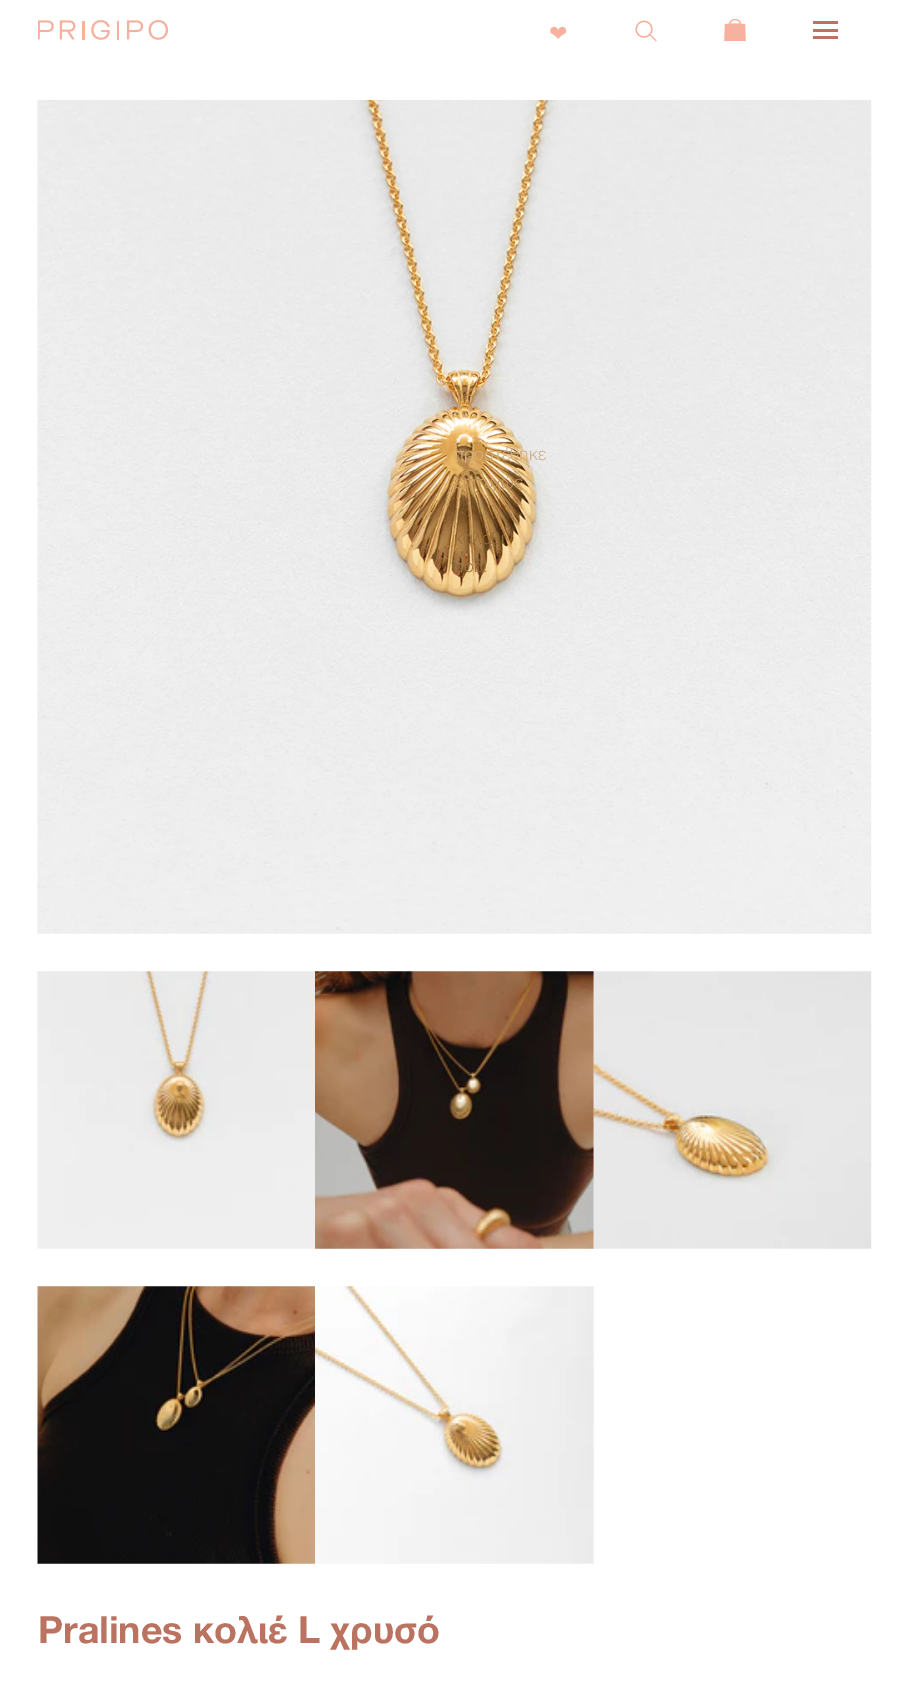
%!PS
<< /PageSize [908 1705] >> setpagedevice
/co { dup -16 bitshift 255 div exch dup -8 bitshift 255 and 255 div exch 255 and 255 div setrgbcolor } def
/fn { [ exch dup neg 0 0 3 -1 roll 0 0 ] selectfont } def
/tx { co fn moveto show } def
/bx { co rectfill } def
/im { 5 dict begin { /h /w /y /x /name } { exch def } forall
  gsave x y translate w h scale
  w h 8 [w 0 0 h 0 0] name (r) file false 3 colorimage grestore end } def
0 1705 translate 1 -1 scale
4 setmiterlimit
0 0 908 1705 16#FFFFFF bx
(media/1.raw) 38 20 130 20 im
(media/2.raw) 635 20 22 22 im
(media/3.raw) 724 19 22 22 im
813 21 25 3 16#BA7361 bx
813 29 25 3 16#BA7361 bx
813 36 25 3 16#BA7361 bx
(media/4.raw) 37 100 835 834 im
(media/5.raw) 37 971 278 278 im
(media/6.raw) 315 971 279 278 im
(media/7.raw) 593 971 279 278 im
(media/8.raw) 37 1286 278 278 im
(media/9.raw) 315 1286 279 278 im
(❤) 549 41 /DejaVuSans-Regular 22 16#F6B29F tx
(Το) 454 404 /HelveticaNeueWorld-Light 17.5 16#BB8E53 tx
(προστέθηκε) 454 460 /HelveticaNeueWorld-Light 17.5 16#D0B085 tx
(επιτυχώς) 454 488 /HelveticaNeueWorld-Light 17.5 16#BF9459 tx
(καλάθι) 454 544 /HelveticaNeueWorld-Light 17.5 16#946B38 tx
(σου!) 454 572 /HelveticaNeueWorld-Light 17.5 16#9F7545 tx
(Pralines κολιέ L χρυσό) 38 1643 /HelveticaNeueWorld-Bold 37.5 16#BA7361 tx
showpage
